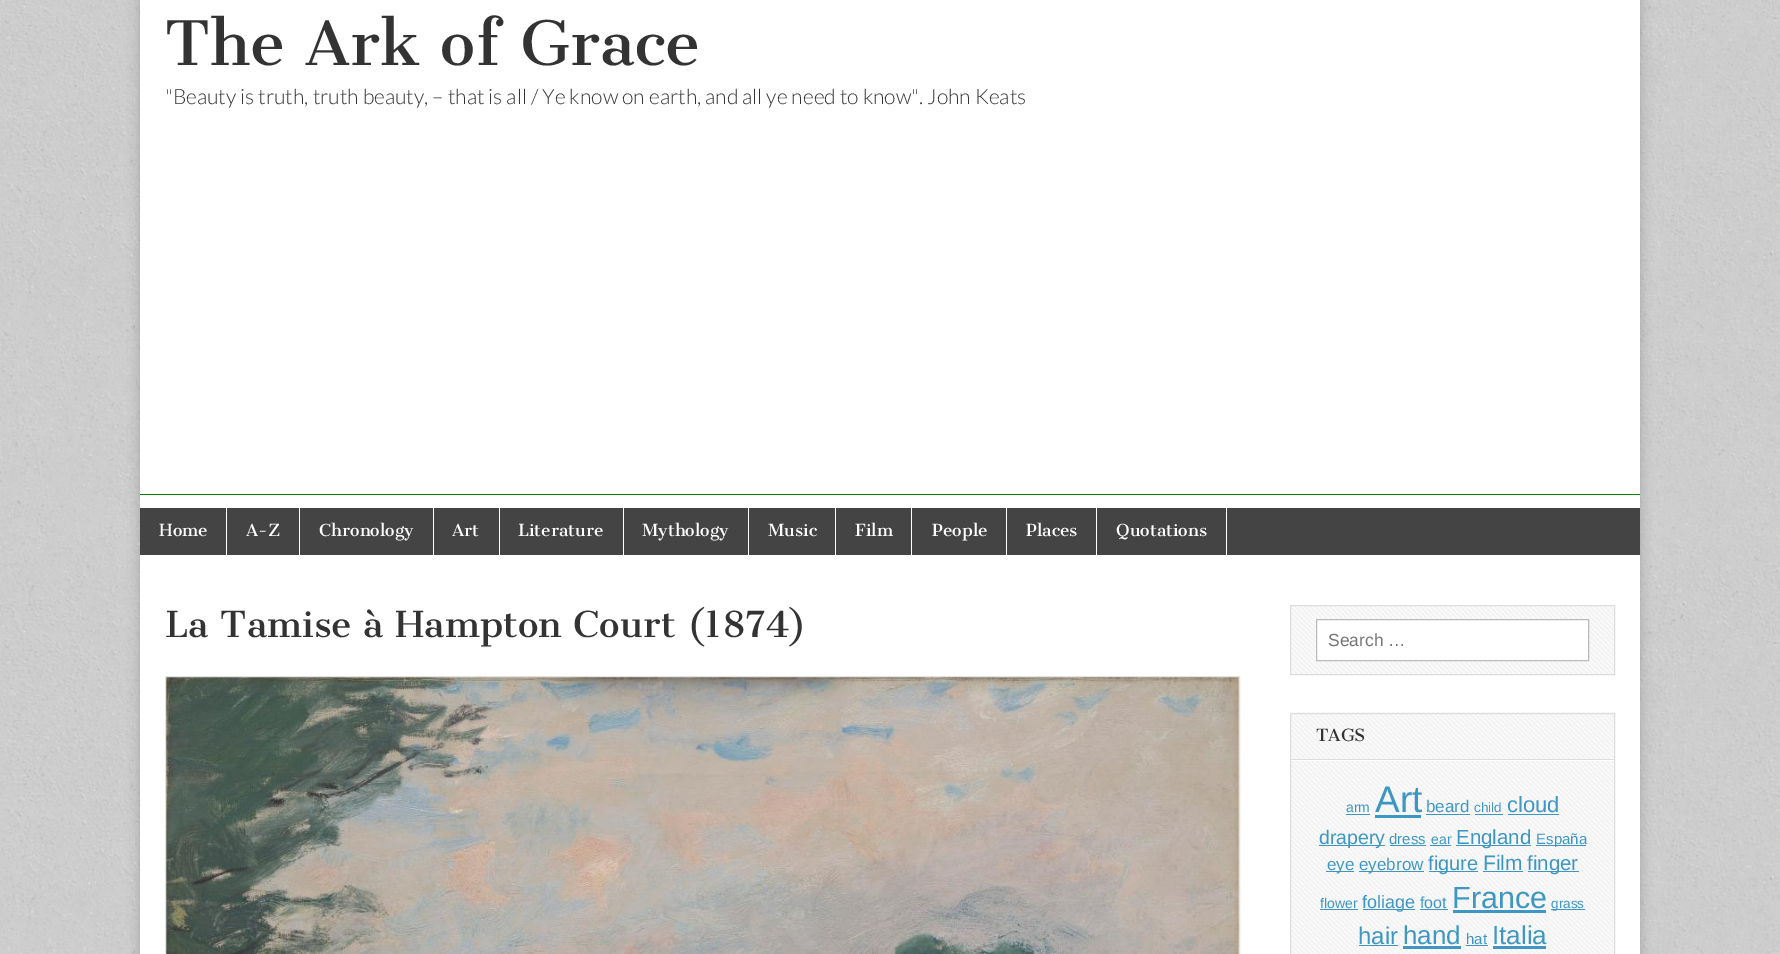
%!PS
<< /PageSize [1780 954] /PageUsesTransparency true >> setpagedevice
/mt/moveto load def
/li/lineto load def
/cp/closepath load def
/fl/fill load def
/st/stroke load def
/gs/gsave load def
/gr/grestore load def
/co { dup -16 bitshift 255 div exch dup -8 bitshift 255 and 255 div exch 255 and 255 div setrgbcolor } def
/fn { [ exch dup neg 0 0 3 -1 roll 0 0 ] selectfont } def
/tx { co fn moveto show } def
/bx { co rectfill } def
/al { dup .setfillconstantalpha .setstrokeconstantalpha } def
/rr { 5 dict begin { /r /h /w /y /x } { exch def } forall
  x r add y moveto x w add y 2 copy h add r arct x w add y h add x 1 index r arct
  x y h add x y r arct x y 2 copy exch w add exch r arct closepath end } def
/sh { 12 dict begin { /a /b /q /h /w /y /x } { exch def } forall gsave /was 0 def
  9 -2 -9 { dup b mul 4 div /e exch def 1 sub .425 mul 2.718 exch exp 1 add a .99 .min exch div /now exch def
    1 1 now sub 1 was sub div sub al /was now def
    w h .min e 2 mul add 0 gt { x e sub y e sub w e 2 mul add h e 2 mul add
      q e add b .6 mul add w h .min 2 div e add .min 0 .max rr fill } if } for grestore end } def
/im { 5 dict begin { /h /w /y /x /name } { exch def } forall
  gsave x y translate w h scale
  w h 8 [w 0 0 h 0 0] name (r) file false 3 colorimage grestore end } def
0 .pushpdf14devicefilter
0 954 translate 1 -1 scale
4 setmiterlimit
0 0 1780 954 16#FFFFFF bx
(media/1.raw) 0 0 1780 954 im
16#000000 co
140 -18 1500 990 0 6 .2 sh
140 0 1500 954 16#FFFFFF bx
140 494 1500 1 16#008000 bx
140 508 1500 47 16#444444 bx
226 508 1 47 16#FFFFFF bx
299 508 1 47 16#FFFFFF bx
433 508 1 47 16#FFFFFF bx
499 508 1 47 16#FFFFFF bx
623 508 1 47 16#FFFFFF bx
748 508 1 47 16#FFFFFF bx
835 508 1 47 16#FFFFFF bx
911 508 1 47 16#FFFFFF bx
1006 508 1 47 16#FFFFFF bx
1096 508 1 47 16#FFFFFF bx
1226 508 1 47 16#FFFFFF bx
16#E2E2E2 co
165.5 676.5 1074 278 rectstroke
(media/2.raw) 166 677 1073 277 im
(media/3.raw) 1291 606 323 68 im
16#DDDDDD co
1290.5 605.5 324 69 rectstroke
16#FFFFFF co
1316.5 619.5 mt 1588.5 619.5 li 1588.5 660.5 li 1316.5 660.5 li cp gs fl gr
16#BBBBBB co
st
(media/4.raw) 1290 712 325 242 im
16#DDDDDD co
1290.5 713.5 324 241 rectstroke
16#FFFFFF co
1291 715 mt 1291 761 li 1614 761 li 1614 715 li 1614 760 li 1291 760 li cp fl
1291 759 323 1 16#DDDDDD bx
1346 814 24 1 16#3D97C2 bx
1375 815 46 3 16#3D97C2 bx
1426 814 44 1 16#3D97C2 bx
1475 814 28 1 16#3D97C2 bx
1508 814 51 1 16#3D97C2 bx
1319 845 66 1 16#3D97C2 bx
1390 845 36 1 16#3D97C2 bx
1430 845 21 1 16#3D97C2 bx
1456 845 75 1 16#3D97C2 bx
1536 845 50 1 16#3D97C2 bx
1326 871 28 1 16#3D97C2 bx
1359 871 65 1 16#3D97C2 bx
1429 871 49 1 16#3D97C2 bx
1483 871 40 1 16#3D97C2 bx
1528 871 51 1 16#3D97C2 bx
1320 909 38 1 16#3D97C2 bx
1363 909 52 1 16#3D97C2 bx
1420 909 28 1 16#3D97C2 bx
1453 910 93 3 16#3D97C2 bx
1551 909 34 1 16#3D97C2 bx
1359 945 39 1 16#3D97C2 bx
1403 946 58 3 16#3D97C2 bx
1466 945 22 1 16#3D97C2 bx
1493 946 53 3 16#3D97C2 bx
(The Ark of Grace) 165 65 /CantataOne-Regular 60 16#333333 tx
("Beauty is truth, truth beauty, – that is all / Ye know on earth, and all ye need to know". John Keats) 165 104 /Lato-Light 21 16#333333 tx
(Home) 159 536 /CantataOne-Regular 16.25 16#FFFFFF tx
(A-Z) 246 536 /CantataOne-Regular 16.25 16#FFFFFF tx
(Chronology) 319 536 /CantataOne-Regular 16.25 16#FFFFFF tx
(Art) 452 536 /CantataOne-Regular 16.25 16#FFFFFF tx
(Literature) 518 536 /CantataOne-Regular 16.25 16#FFFFFF tx
(Mythology) 642 536 /CantataOne-Regular 16.25 16#FFFFFF tx
(Music) 768 536 /CantataOne-Regular 16.25 16#FFFFFF tx
(Film) 855 536 /CantataOne-Regular 16.25 16#FFFFFF tx
(People) 932 536 /CantataOne-Regular 16.25 16#FFFFFF tx
(Places) 1026 536 /CantataOne-Regular 16.25 16#FFFFFF tx
(Quotations) 1116 536 /CantataOne-Regular 16.25 16#FFFFFF tx
(La Tamise à Hampton Court \(1874\)) 165 637 /CantataOne-Regular 35 16#333333 tx
(Search …) 1328 646 /LiberationSans-Regular 17.5 16#757575 tx
(TAGS) 1316 741 /CantataOne-Regular 16.5 16#333333 tx
(arm) 1346 812 /LiberationSans-Regular 14 16#3D97C2 tx
(Art) 1375 812 /LiberationSans-Regular 37 16#3D97C2 tx
(beard) 1426 812 /LiberationSans-Regular 17 16#3D97C2 tx
(child) 1474 812 /LiberationSans-Regular 13.5 16#3D97C2 tx
(cloud) 1507 812 /LiberationSans-Regular 22 16#3D97C2 tx
(drapery) 1319 844 /LiberationSans-Regular 19.5 16#3D97C2 tx
(dress) 1389 844 /LiberationSans-Regular 15 16#3D97C2 tx
(ear) 1431 844 /LiberationSans-Regular 14 16#3D97C2 tx
(England) 1456 844 /LiberationSans-Regular 20.5 16#3D97C2 tx
(España) 1536 844 /LiberationSans-Regular 15 16#3D97C2 tx
(eye) 1327 870 /LiberationSans-Regular 17 16#3D97C2 tx
(eyebrow) 1359 870 /LiberationSans-Regular 17 16#3D97C2 tx
(figure) 1428 870 /LiberationSans-Regular 20 16#3D97C2 tx
(Film) 1483 870 /LiberationSans-Regular 21 16#3D97C2 tx
(finger) 1527 870 /LiberationSans-Regular 20.5 16#3D97C2 tx
(flower) 1320 908 /LiberationSans-Regular 14 16#3D97C2 tx
(foliage) 1362 908 /LiberationSans-Regular 18 16#3D97C2 tx
(foot) 1420 908 /LiberationSans-Regular 16 16#3D97C2 tx
(France) 1452 908 /LiberationSans-Regular 30.5 16#3D97C2 tx
(grass) 1551 908 /LiberationSans-Regular 13.5 16#3D97C2 tx
(hair) 1358 944 /LiberationSans-Regular 24 16#3D97C2 tx
(hand) 1403 944 /LiberationSans-Regular 26 16#3D97C2 tx
(hat) 1466 944 /LiberationSans-Regular 15 16#3D97C2 tx
(Italia) 1492 944 /LiberationSans-Regular 26 16#3D97C2 tx
.poppdf14devicefilter showpage
